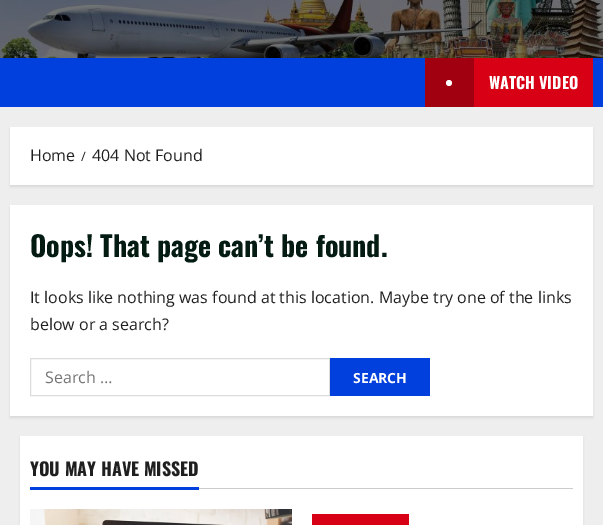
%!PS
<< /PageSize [603 525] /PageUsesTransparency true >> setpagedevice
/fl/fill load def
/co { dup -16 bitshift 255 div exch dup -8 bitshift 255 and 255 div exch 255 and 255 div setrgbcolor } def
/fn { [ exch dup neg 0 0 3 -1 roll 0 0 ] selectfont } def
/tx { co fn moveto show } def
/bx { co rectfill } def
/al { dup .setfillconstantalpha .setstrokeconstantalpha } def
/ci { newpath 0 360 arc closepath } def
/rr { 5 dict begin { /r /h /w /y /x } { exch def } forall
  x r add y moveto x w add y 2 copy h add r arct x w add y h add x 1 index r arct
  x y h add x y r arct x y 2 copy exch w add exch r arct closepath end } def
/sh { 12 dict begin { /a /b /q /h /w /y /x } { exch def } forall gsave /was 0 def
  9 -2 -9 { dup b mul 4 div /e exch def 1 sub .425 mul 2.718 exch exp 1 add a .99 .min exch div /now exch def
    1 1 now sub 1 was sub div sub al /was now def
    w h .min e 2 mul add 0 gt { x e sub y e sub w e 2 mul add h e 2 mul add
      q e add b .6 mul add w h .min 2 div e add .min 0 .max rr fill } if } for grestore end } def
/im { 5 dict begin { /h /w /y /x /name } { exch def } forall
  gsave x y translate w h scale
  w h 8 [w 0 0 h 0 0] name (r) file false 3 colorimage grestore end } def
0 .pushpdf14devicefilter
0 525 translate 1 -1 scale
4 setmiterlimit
0 0 603 525 16#EEEEEE bx
(media/1.raw) 0 0 603 58 im
0 58 603 49 16#0140DD bx
474 58 119 49 16#D70015 bx
425 58 49 49 16#A10010 bx
16#FFFFFF co
449 83 3 ci fl
16#000000 co
10 129 583 58 0 1 .08 sh
10 127 583 58 16#FFFFFF bx
16#000000 co
10 207 583 211 0 1 .08 sh
10 205 583 211 16#FFFFFF bx
16#DCDCDC co
30.5 358.5 299 37 rectstroke
330 358 100 38 16#0140DD bx
16#000000 co
20 438 563 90 0 1 .08 sh
20 436 563 89 16#FFFFFF bx
199 488 374 1 16#CCCCCC bx
30 487 169 3 16#0140DD bx
(media/2.raw) 30 509 262 16 im
312 514 97 11 16#D70015 bx
(WATCH VIDEO) 489 89 /Oswald-Bold 16 16#FFFFFF tx
(Home) 30 161 /OpenSans-Regular 16 16#1F1F1F tx
(/) 81 161 /OpenSans-Regular 13 16#1F1F1F tx
(404 Not Found) 92 161 /OpenSans-Regular 16 16#1F1F1F tx
(Oops! That page can’t be found.) 30 257 /Oswald-Bold 28 16#031B11 tx
(It looks like nothing was found at this location. Maybe try one of the links) 30 303 /OpenSans-Regular 16 16#1F1F1F tx
(below or a search?) 30 330 /OpenSans-Regular 16 16#1F1F1F tx
(Search …) 45 383 /OpenSans-Regular 16 16#757575 tx
(SEARCH) 353 383 /OpenSans-Bold 14 16#FFFFFF tx
(YOU MAY HAVE MISSED) 30 476 /Oswald-Bold 18 16#1F1F1F tx
.poppdf14devicefilter showpage
